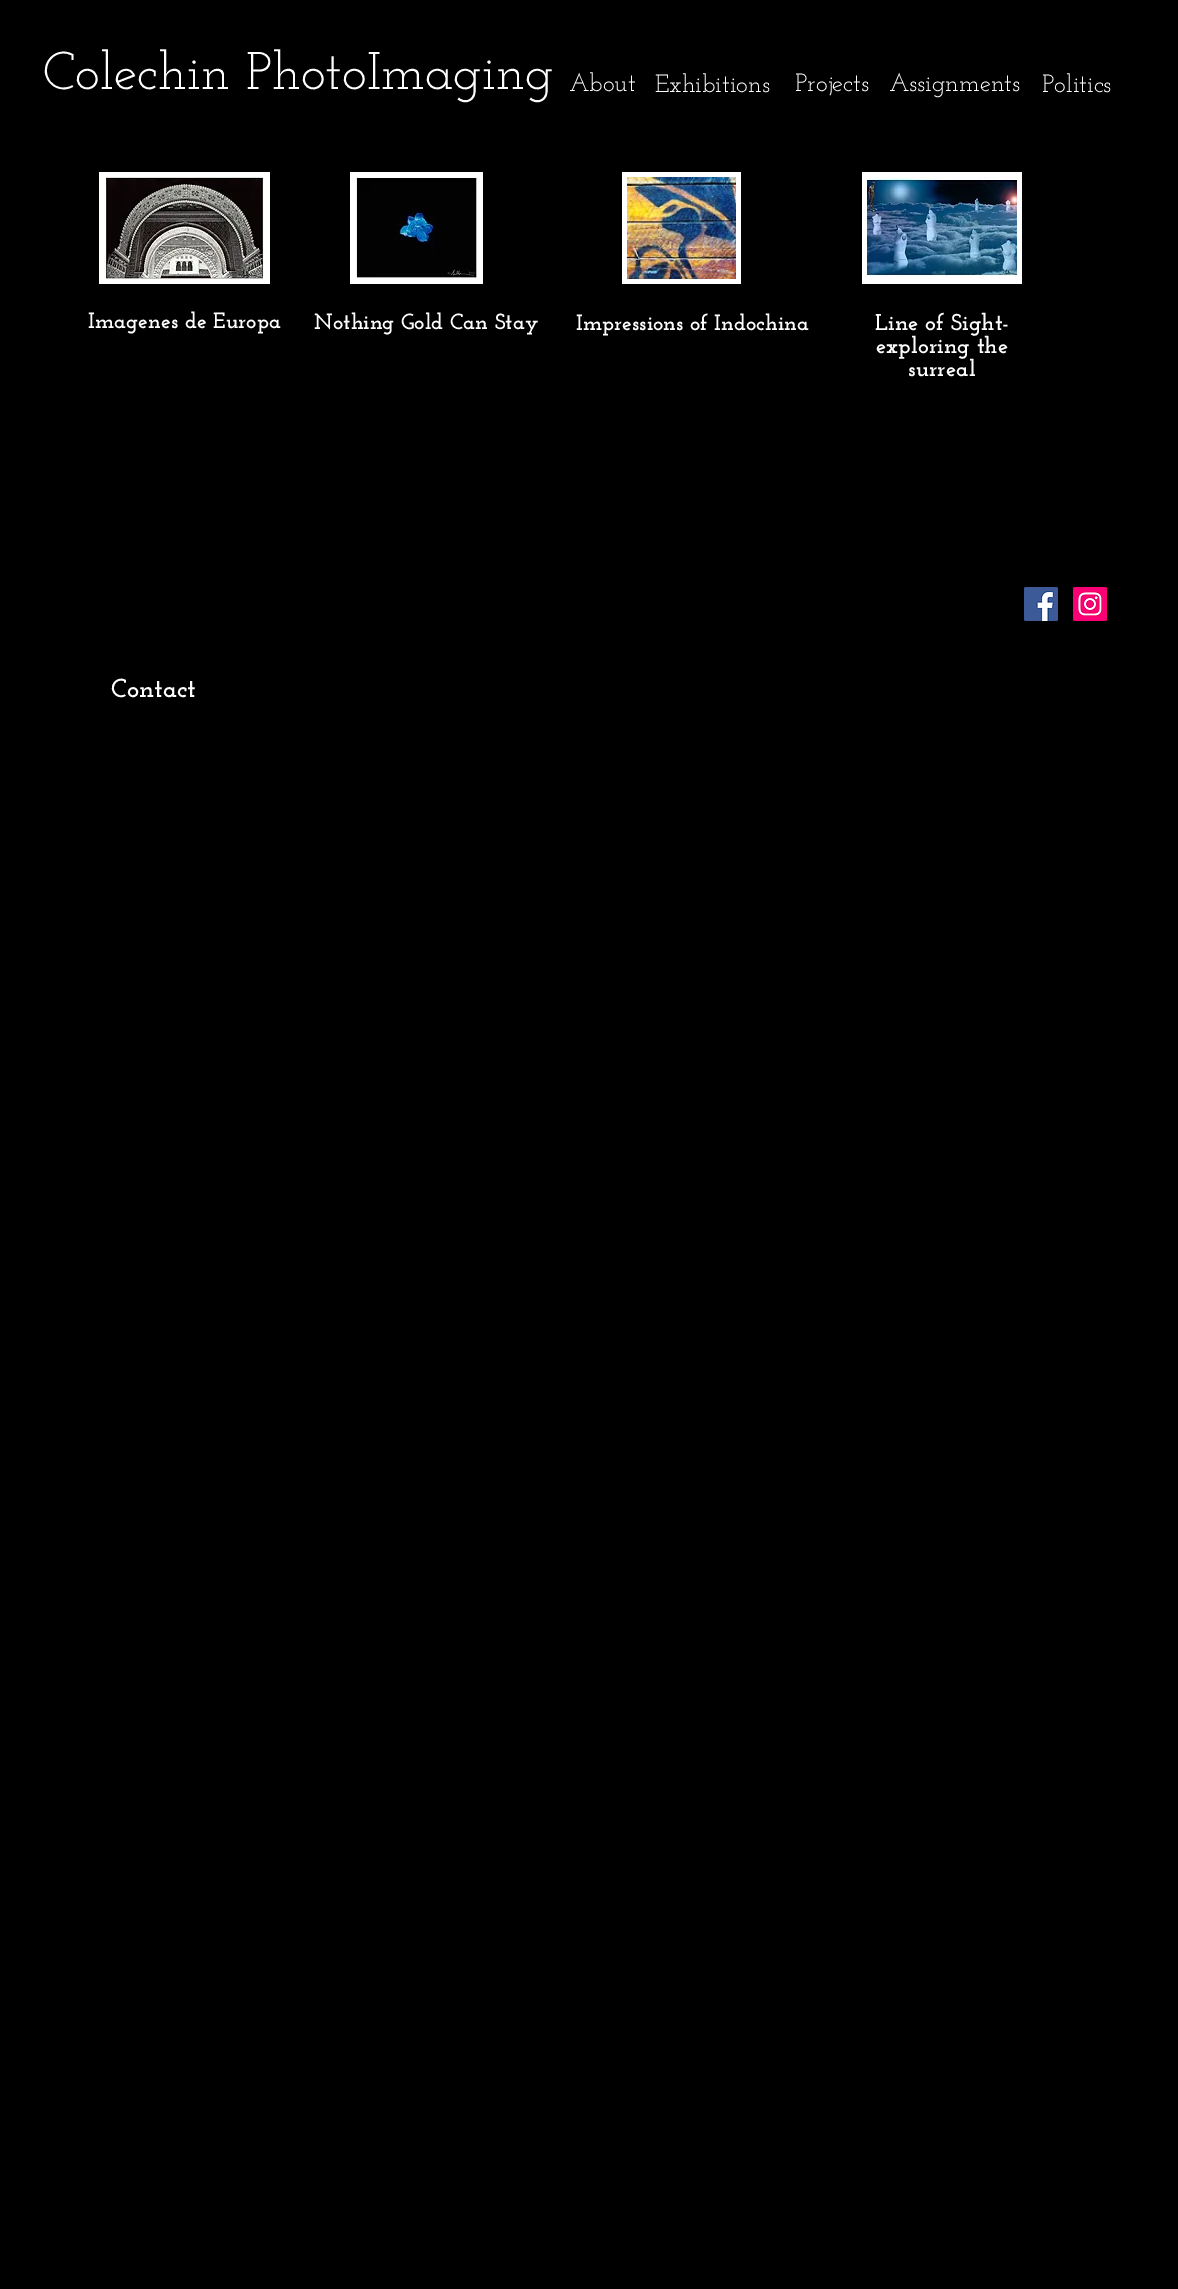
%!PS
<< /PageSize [1178 2289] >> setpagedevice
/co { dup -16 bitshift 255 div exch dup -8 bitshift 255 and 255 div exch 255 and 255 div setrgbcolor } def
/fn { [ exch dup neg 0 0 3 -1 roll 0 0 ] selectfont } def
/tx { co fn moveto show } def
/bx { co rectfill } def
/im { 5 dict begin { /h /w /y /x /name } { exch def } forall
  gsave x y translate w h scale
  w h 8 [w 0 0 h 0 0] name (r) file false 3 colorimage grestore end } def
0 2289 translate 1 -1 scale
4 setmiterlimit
0 0 1178 2289 16#000000 bx
99 172 171 112 16#FFFFFF bx
(media/1.raw) 104 177 160 102 im
350 172 133 112 16#FFFFFF bx
(media/2.raw) 355 177 123 102 im
622 172 119 112 16#FFFFFF bx
(media/3.raw) 627 177 109 102 im
862 172 160 112 16#FFFFFF bx
(media/4.raw) 867 177 150 100 im
(media/5.raw) 1024 587 34 34 im
(media/6.raw) 1073 587 34 34 im
(Colechin PhotoImaging) 43 89 /JosefinSlab-Regular 53 16#FFFFFF tx
(About) 569 91 /JosefinSlab-Regular 25 16#FFFFFF tx
(Exhibitions) 655 92 /JosefinSlab-Regular 25 16#FFFFFF tx
(Projects) 795 91 /JosefinSlab-Regular 25 16#FFFFFF tx
(Assignments) 889 91 /JosefinSlab-Regular 25 16#FFFFFF tx
(Politics) 1042 92 /JosefinSlab-Regular 25 16#FFFFFF tx
(Imagenes de Europa) 88 328 /JosefinSlab-Bold 22 16#FFFFFF tx
(Nothing Gold Can Stay) 314 329 /JosefinSlab-Bold 22 16#FFFFFF tx
(Impressions of Indochina) 576 330 /JosefinSlab-Bold 22 16#FFFFFF tx
(Line of Sight-) 875 330 /JosefinSlab-Bold 23 16#FFFFFF tx
(exploring the) 876 353 /JosefinSlab-Bold 23 16#FFFFFF tx
(surreal) 908 376 /JosefinSlab-Bold 23 16#FFFFFF tx
(Contact) 111 697 /JosefinSlab-Bold 26 16#FFFFFF tx
showpage
